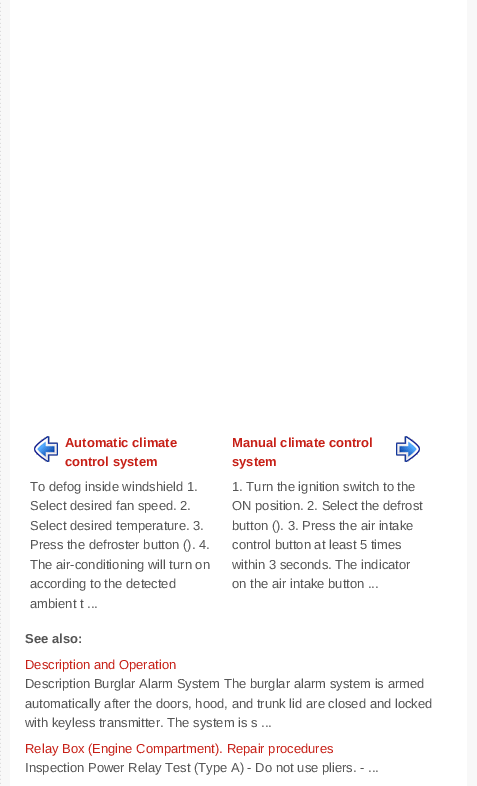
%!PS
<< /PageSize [477 786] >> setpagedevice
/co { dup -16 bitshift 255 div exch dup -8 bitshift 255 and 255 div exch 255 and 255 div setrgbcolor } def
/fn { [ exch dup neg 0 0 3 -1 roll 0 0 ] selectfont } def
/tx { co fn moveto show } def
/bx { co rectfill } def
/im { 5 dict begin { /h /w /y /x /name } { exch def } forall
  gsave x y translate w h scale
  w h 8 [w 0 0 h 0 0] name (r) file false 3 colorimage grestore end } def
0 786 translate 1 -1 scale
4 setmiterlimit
0 0 477 786 16#FFFFFF bx
(media/1.raw) 0 0 477 786 im
10 0 457 786 16#FFFFFF bx
(media/2.raw) 34 436 24 26 im
(media/3.raw) 396 436 24 26 im
(Automatic climate) 65 447 /LiberationSans-Bold 13 16#C72017 tx
(control system) 65 466 /LiberationSans-Bold 13 16#C72017 tx
(To defog inside windshield 1.) 30 491 /LiberationSans-Regular 13 16#555555 tx
(Select desired fan speed. 2.) 30 510 /LiberationSans-Regular 13 16#555555 tx
(Select desired temperature. 3.) 30 530 /LiberationSans-Regular 13 16#555555 tx
(Press the defroster button \(\). 4.) 30 549 /LiberationSans-Regular 13 16#555555 tx
(The air-conditioning will turn on) 30 569 /LiberationSans-Regular 13 16#555555 tx
(according to the detected) 30 588 /LiberationSans-Regular 13 16#555555 tx
(ambient t ...) 30 608 /LiberationSans-Regular 13 16#555555 tx
(Manual climate control) 232 447 /LiberationSans-Bold 13 16#C72017 tx
(system) 232 466 /LiberationSans-Bold 13 16#C72017 tx
(1. Turn the ignition switch to the) 232 491 /LiberationSans-Regular 13 16#555555 tx
(ON position. 2. Select the defrost) 232 510 /LiberationSans-Regular 13 16#555555 tx
(button \(\). 3. Press the air intake) 232 530 /LiberationSans-Regular 13 16#555555 tx
(control button at least 5 times) 232 549 /LiberationSans-Regular 13 16#555555 tx
(within 3 seconds. The indicator) 232 569 /LiberationSans-Regular 13 16#555555 tx
(on the air intake button ...) 232 588 /LiberationSans-Regular 13 16#555555 tx
(See also:) 25 643 /LiberationSans-Bold 13 16#555555 tx
(Description and Operation) 25 669 /LiberationSans-Regular 13 16#C72017 tx
(Description Burglar Alarm System The burglar alarm system is armed) 25 688 /LiberationSans-Regular 13 16#555555 tx
(automatically after the doors, hood, and trunk lid are closed and locked) 25 708 /LiberationSans-Regular 13 16#555555 tx
(with keyless transmitter. The system is s ...) 25 727 /LiberationSans-Regular 13 16#555555 tx
(Relay Box \(Engine Compartment\). Repair procedures) 25 753 /LiberationSans-Regular 13 16#C72017 tx
(Inspection Power Relay Test \(Type A\) - Do not use pliers. - ...) 25 772 /LiberationSans-Regular 13 16#555555 tx
showpage
